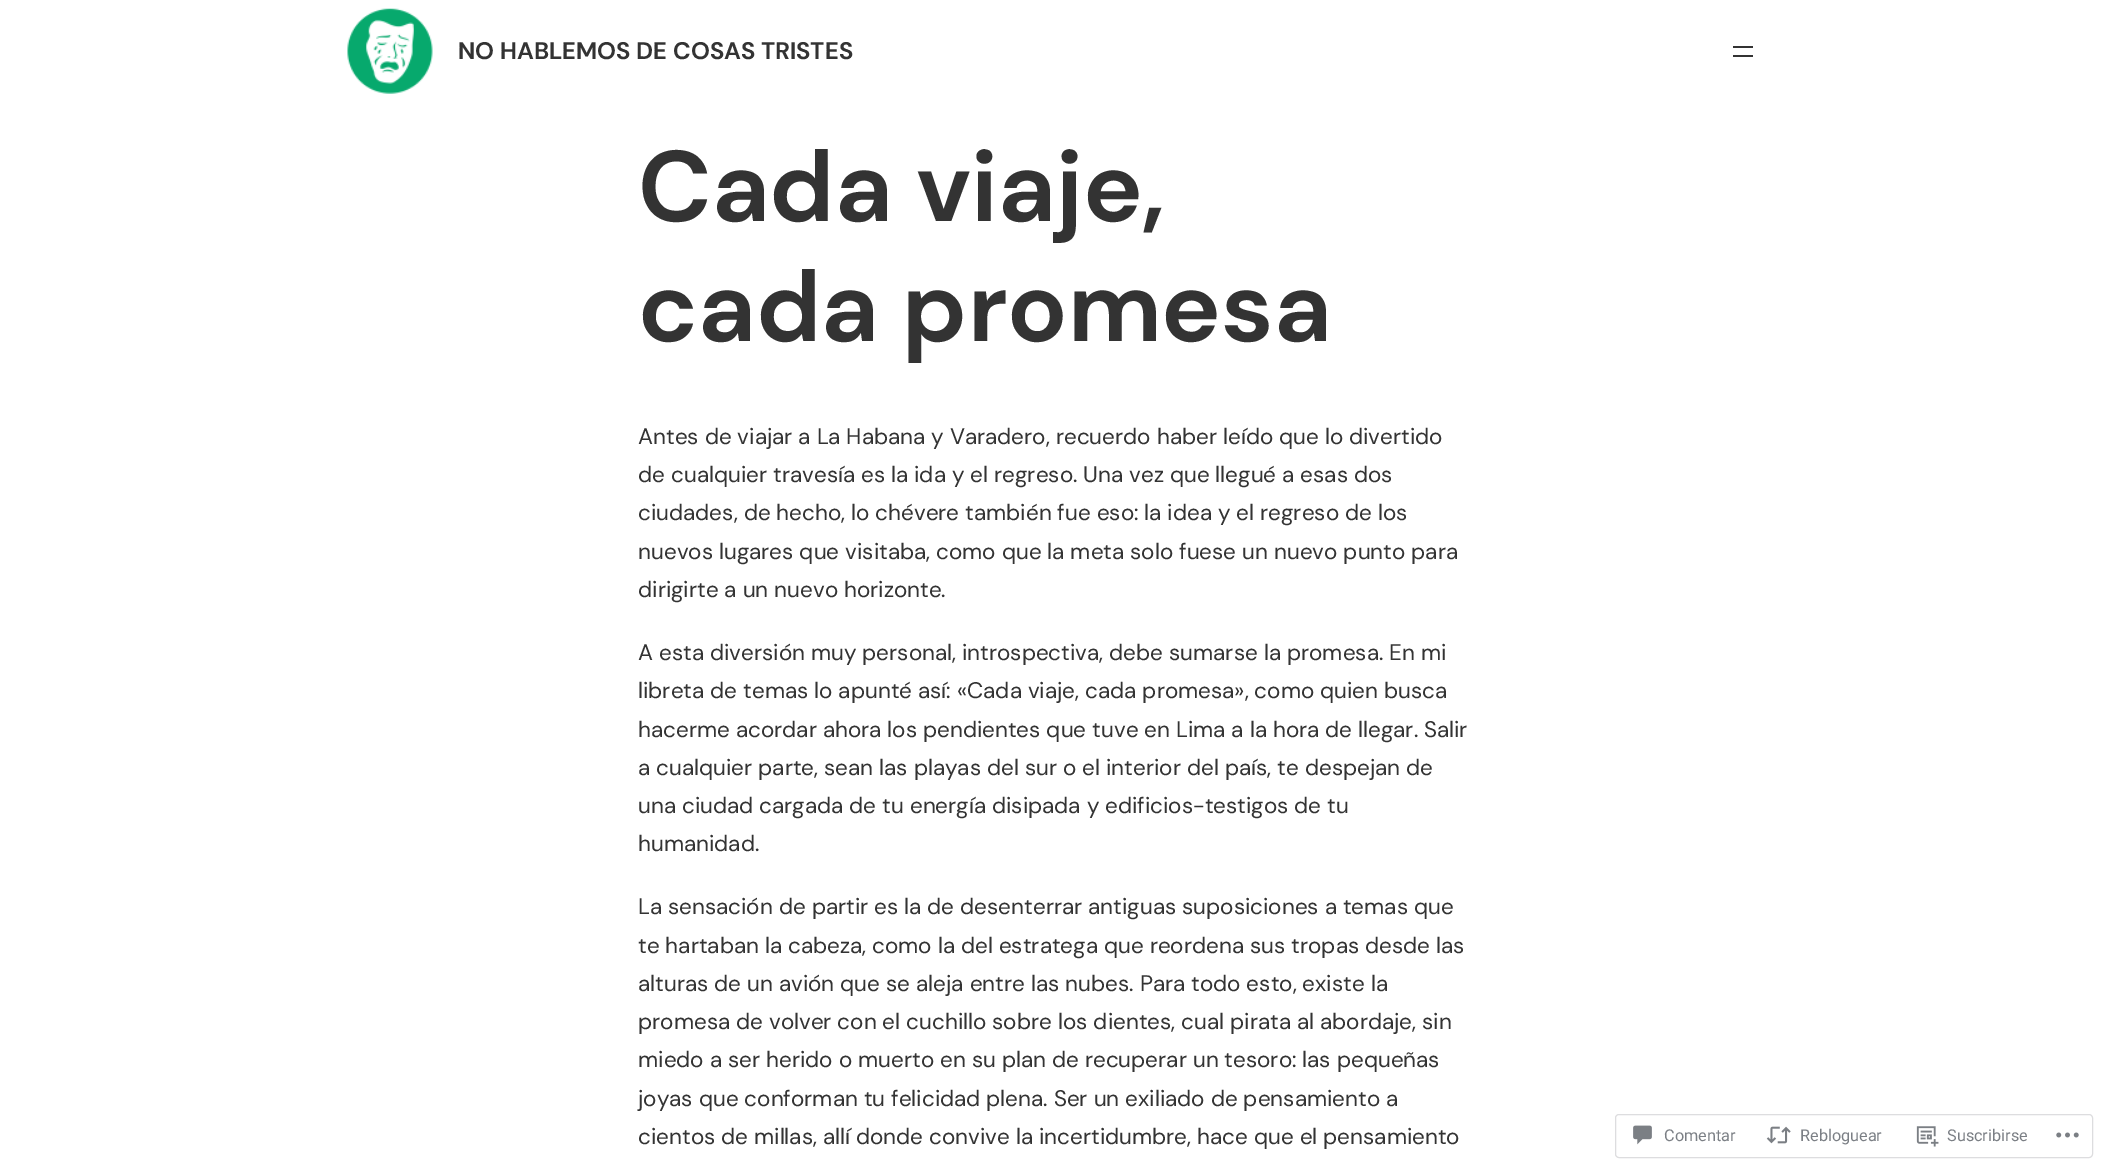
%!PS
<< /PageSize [2105 1170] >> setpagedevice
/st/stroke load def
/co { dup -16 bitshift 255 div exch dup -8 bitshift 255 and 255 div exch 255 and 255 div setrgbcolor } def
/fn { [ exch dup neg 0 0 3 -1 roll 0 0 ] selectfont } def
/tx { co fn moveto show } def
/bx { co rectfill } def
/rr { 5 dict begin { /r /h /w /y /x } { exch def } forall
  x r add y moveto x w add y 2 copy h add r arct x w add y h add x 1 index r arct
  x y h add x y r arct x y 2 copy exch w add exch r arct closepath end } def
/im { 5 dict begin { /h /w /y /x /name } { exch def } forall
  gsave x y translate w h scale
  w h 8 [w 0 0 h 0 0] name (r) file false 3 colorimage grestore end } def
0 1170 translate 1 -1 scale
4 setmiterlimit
0 0 2105 1170 16#FFFFFF bx
(media/1.raw) 347 8 86 86 im
1733 46 20 2 16#333333 bx
1733 55 20 2 16#333333 bx
16#DDDDDF co
1615.5 1114.5 477 43 3.5 rr st
(media/2.raw) 1633 1125 19 20 im
(media/3.raw) 1766 1126 25 18 im
(media/4.raw) 1916 1126 23 21 im
(media/5.raw) 2056 1132 23 6 im
(NO HABLEMOS DE COSAS TRISTES) 458 59 /DMSans-Bold 24 16#333333 tx
(Cada viaje,) 638 221 /DMSans-Bold 100 16#333333 tx
(cada promesa) 638 341 /DMSans-Bold 100 16#333333 tx
(Antes de viajar a La Habana y Varadero, recuerdo haber leído que lo divertido) 638 444 /DMSans-Regular 22.5 16#333333 tx
(de cualquier travesía es la ida y el regreso. Una vez que llegué a esas dos) 638 482 /DMSans-Regular 22.5 16#333333 tx
(ciudades, de hecho, lo chévere también fue eso: la idea y el regreso de los) 638 520 /DMSans-Regular 22.5 16#333333 tx
(nuevos lugares que visitaba, como que la meta solo fuese un nuevo punto para) 638 559 /DMSans-Regular 22.5 16#333333 tx
(dirigirte a un nuevo horizonte.) 638 597 /DMSans-Regular 22.5 16#333333 tx
(A esta diversión muy personal, introspectiva, debe sumarse la promesa. En mi) 638 660 /DMSans-Regular 22.5 16#333333 tx
(libreta de temas lo apunté así: «Cada viaje, cada promesa», como quien busca) 638 698 /DMSans-Regular 22.5 16#333333 tx
(hacerme acordar ahora los pendientes que tuve en Lima a la hora de llegar. Salir) 638 737 /DMSans-Regular 22.5 16#333333 tx
(a cualquier parte, sean las playas del sur o el interior del país, te despejan de) 638 775 /DMSans-Regular 22.5 16#333333 tx
(una ciudad cargada de tu energía disipada y edificios-testigos de tu) 638 813 /DMSans-Regular 22.5 16#333333 tx
(humanidad.) 638 851 /DMSans-Regular 22.5 16#333333 tx
(La sensación de partir es la de desenterrar antiguas suposiciones a temas que) 638 914 /DMSans-Regular 22.5 16#333333 tx
(te hartaban la cabeza, como la del estratega que reordena sus tropas desde las) 638 953 /DMSans-Regular 22.5 16#333333 tx
(alturas de un avión que se aleja entre las nubes. Para todo esto, existe la) 638 991 /DMSans-Regular 22.5 16#333333 tx
(promesa de volver con el cuchillo sobre los dientes, cual pirata al abordaje, sin) 638 1029 /DMSans-Regular 22.5 16#333333 tx
(miedo a ser herido o muerto en su plan de recuperar un tesoro: las pequeñas) 638 1067 /DMSans-Regular 22.5 16#333333 tx
(joyas que conforman tu felicidad plena. Ser un exiliado de pensamiento a) 638 1106 /DMSans-Regular 22.5 16#333333 tx
(cientos de millas, allí donde convive la incertidumbre, hace que el pensamiento) 638 1144 /DMSans-Regular 22.5 16#333333 tx
(Comentar) 1664 1141 /Roboto-Regular 16.25 16#7B7F85 tx
(Rebloguear) 1800 1141 /Roboto-Regular 16.25 16#7B7F85 tx
(Suscribirse) 1947 1141 /Roboto-Regular 16.25 16#7B7F85 tx
showpage
